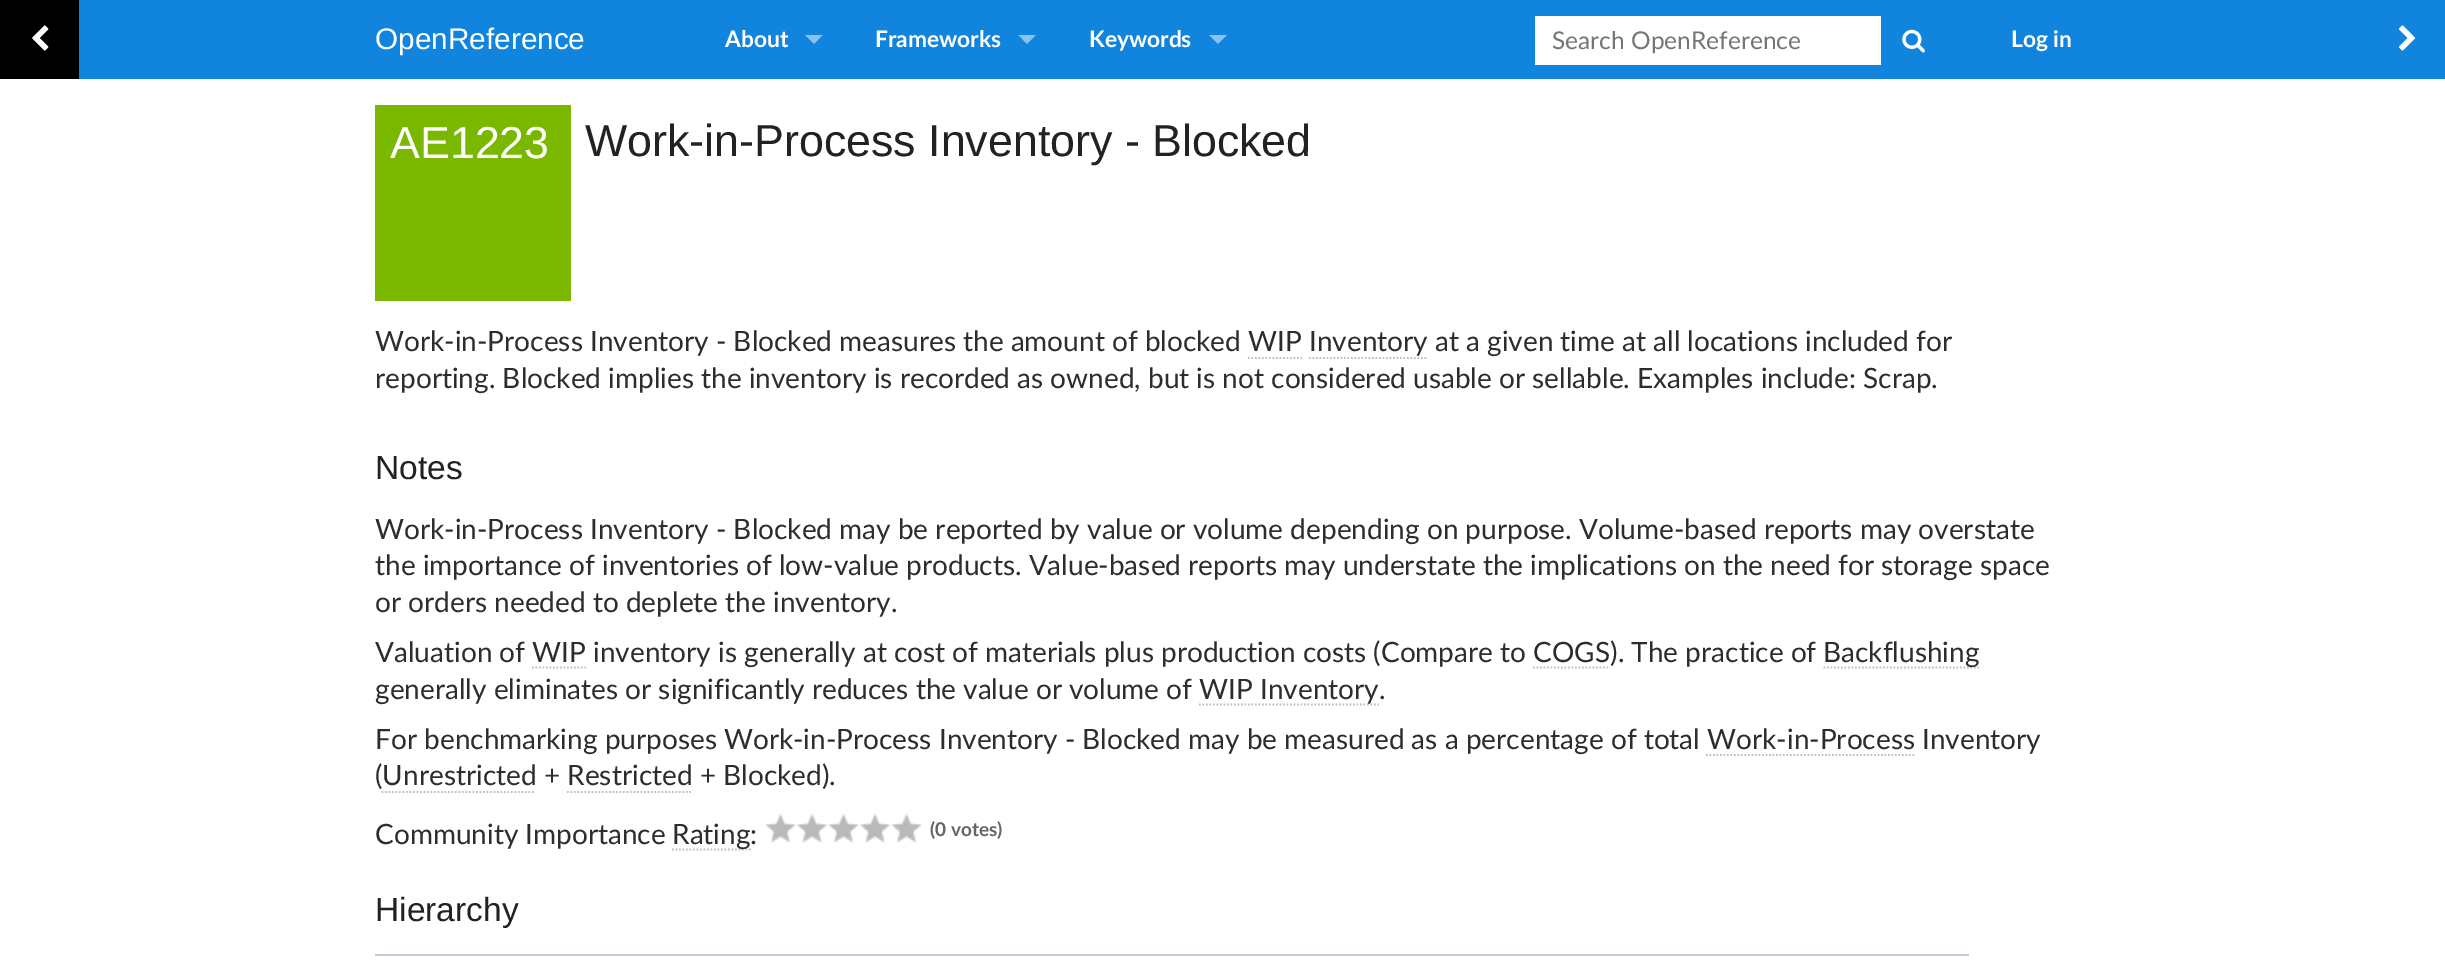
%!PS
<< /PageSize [2445 970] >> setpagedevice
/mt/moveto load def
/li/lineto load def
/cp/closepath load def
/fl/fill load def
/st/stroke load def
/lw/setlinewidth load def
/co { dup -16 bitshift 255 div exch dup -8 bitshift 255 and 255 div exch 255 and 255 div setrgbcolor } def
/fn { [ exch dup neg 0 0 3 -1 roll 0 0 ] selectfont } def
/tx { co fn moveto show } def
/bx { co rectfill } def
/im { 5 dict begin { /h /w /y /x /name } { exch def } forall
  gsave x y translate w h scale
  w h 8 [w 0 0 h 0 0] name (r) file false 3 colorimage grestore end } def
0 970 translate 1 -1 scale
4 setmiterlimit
0 0 2445 970 16#FFFFFF bx
79 0 2366 79 16#1185DD bx
0 0 79 79 16#000000 bx
(media/1.raw) 32 25 17 26 im
(media/2.raw) 2398 25 17 26 im
16#88C2EE co
805 35 mt 822.5 35 li 814 44 li cp fl
1018.5 35 mt 1036 35 li 1027 44 li cp fl
1209 35 mt 1227 35 li 1218 44 li cp fl
1535 16 346 49 16#FFFFFF bx
(media/3.raw) 1902 29 23 24 im
375 105 196 196 16#7AB800 bx
16#C0C0C0 co
1.8 lw
[1.75 1.75] 0 setdash
1248 358 mt 1302 358 li st
1309 358 mt 1428 358 li st
1823.5 667.5 mt 1979 667.5 li st
1199 704.5 mt 1379 704.5 li st
381.5 792 mt 535.5 792 li st
567 792 mt 691 792 li st
672 849.5 mt 751 849.5 li st
(media/4.raw) 765 813 31 30 im
(media/5.raw) 796 813 32 30 im
(media/6.raw) 828 813 31 30 im
(media/7.raw) 859 813 32 30 im
(media/6.raw) 891 813 31 30 im
375 954 1594 2 16#C3CBD9 bx
(OpenReference) 375 49 /LiberationSans-Regular 29.75 16#FFFFFF tx
(About) 725 47 /Lato-Bold 22.75 16#FFFFFF tx
(Frameworks) 875 47 /Lato-Bold 22.75 16#FFFFFF tx
(Keywords) 1089 47 /Lato-Bold 22.75 16#FFFFFF tx
(Search OpenReference) 1552 49 /Lato-Regular 24.5 16#757575 tx
(Log in) 2011 47 /Lato-Bold 22.75 16#FFFFFF tx
(AE1223) 390 158 /LiberationSans-Regular 44.75 16#FFFFFF tx
(Work-in-Process Inventory - Blocked) 585 156 /LiberationSans-Regular 44.75 16#222222 tx
(Work-in-Process Inventory - Blocked measures the amount of blocked WIP Inventory at a given time at all locations included for) 375 351 /Lato-Regular 28 16#2D2D2D tx
(reporting. Blocked implies the inventory is recorded as owned, but is not considered usable or sellable. Examples include: Scrap.) 375 388 /Lato-Regular 28 16#2D2D2D tx
(Notes) 375 479 /LiberationSans-Regular 33.5 16#222222 tx
(Work-in-Process Inventory - Blocked may be reported by value or volume depending on purpose. Volume-based reports may overstate) 375 539 /Lato-Regular 28 16#2D2D2D tx
(the importance of inventories of low-value products. Value-based reports may understate the implications on the need for storage space) 375 575 /Lato-Regular 28 16#2D2D2D tx
(or orders needed to deplete the inventory.) 375 612 /Lato-Regular 28 16#2D2D2D tx
(Valuation of WIP inventory is generally at cost of materials plus production costs \(Compare to COGS\). The practice of) 375 662 /Lato-Regular 28 16#2D2D2D tx
(Backflushing) 1823 662 /Lato-Regular 28 16#2D2D2D tx
16#C0C0C0 co
532 667.5 mt 586 667.5 li st
1533 667.5 mt 1610 667.5 li st
(generally eliminates or significantly reduces the value or volume of) 375 699 /Lato-Regular 28 16#2D2D2D tx
(WIP Inventory.) 1199 699 /Lato-Regular 28 16#2D2D2D tx
(For benchmarking purposes Work-in-Process Inventory - Blocked may be measured as a percentage of total Work-in-Process Inventory) 375 749 /Lato-Regular 28 16#2D2D2D tx
16#C0C0C0 co
1706 755 mt 1914.5 755 li st
(\(Unrestricted + Restricted + Blocked\).) 375 785 /Lato-Regular 28 16#2D2D2D tx
(Community Importance) 375 844 /Lato-Regular 28 16#2D2D2D tx
(Rating:) 672 844 /Lato-Regular 28 16#2D2D2D tx
(\(0 votes\)) 930 836 /Lato-Bold 19 16#666666 tx
(Hierarchy) 375 921 /LiberationSans-Regular 33.5 16#222222 tx
showpage
